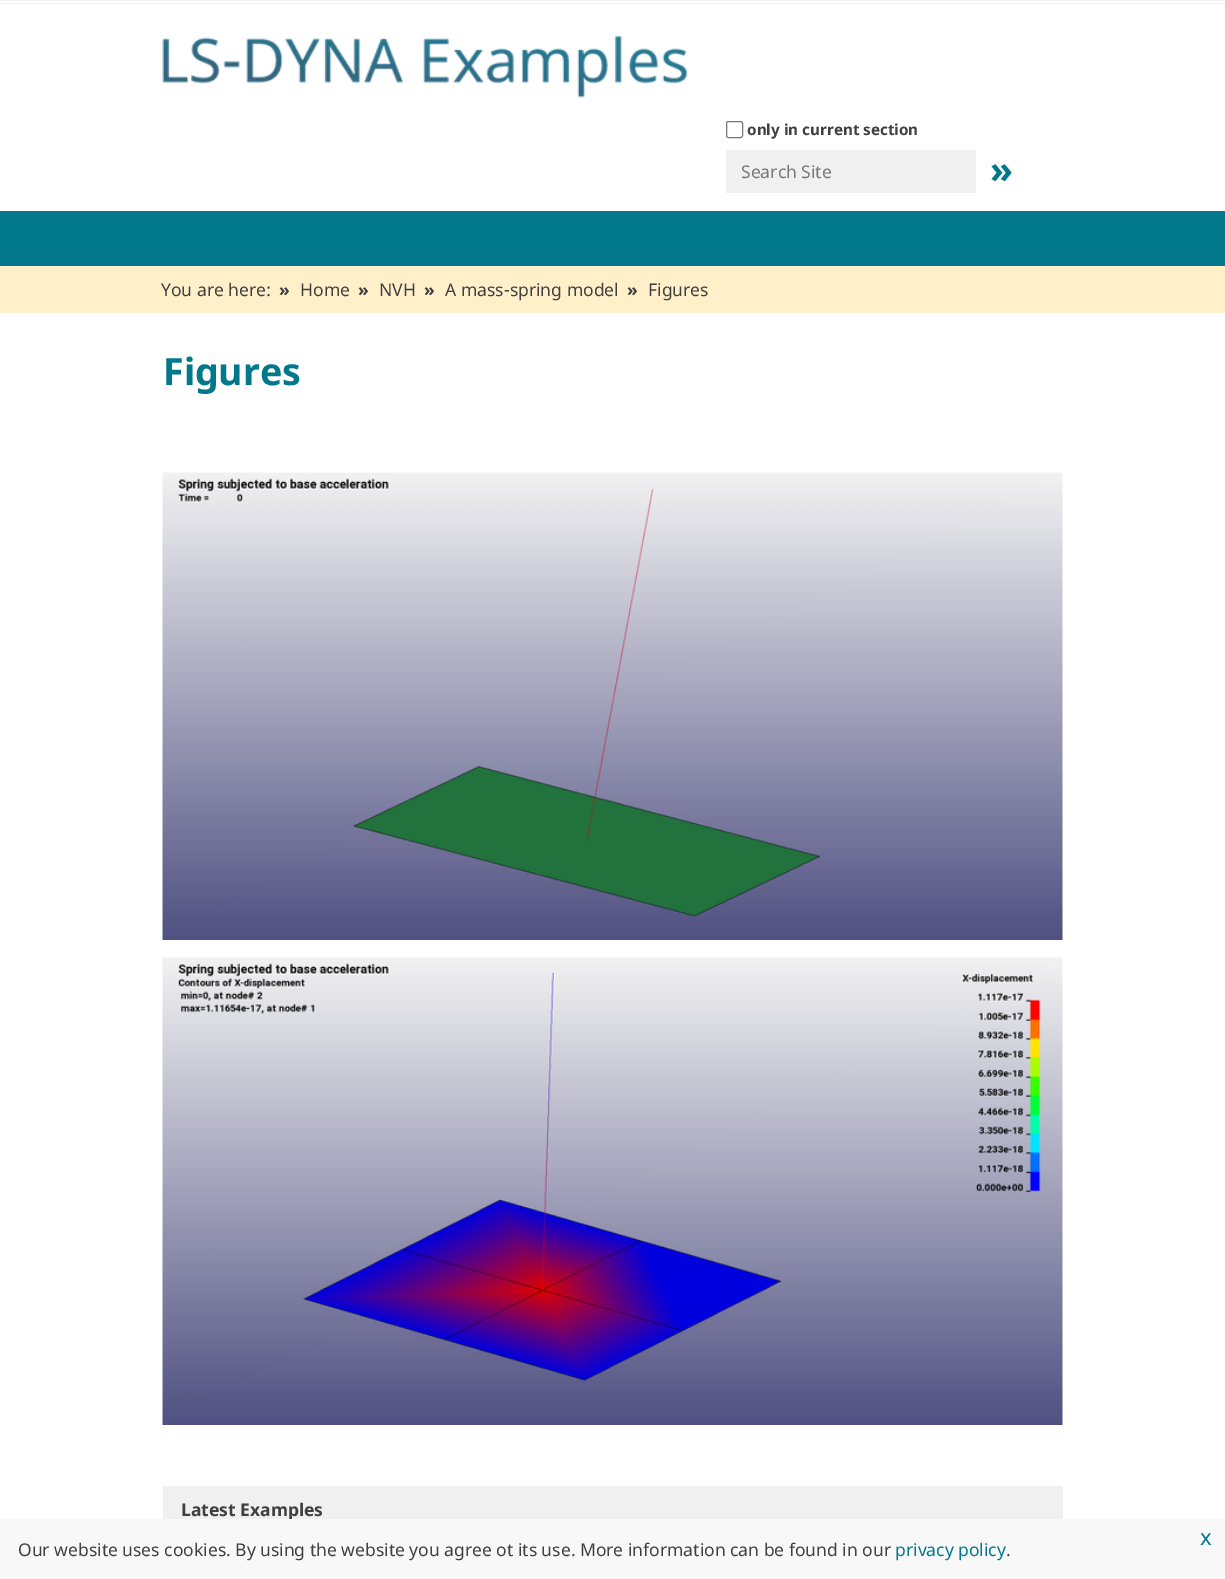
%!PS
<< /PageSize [1225 1579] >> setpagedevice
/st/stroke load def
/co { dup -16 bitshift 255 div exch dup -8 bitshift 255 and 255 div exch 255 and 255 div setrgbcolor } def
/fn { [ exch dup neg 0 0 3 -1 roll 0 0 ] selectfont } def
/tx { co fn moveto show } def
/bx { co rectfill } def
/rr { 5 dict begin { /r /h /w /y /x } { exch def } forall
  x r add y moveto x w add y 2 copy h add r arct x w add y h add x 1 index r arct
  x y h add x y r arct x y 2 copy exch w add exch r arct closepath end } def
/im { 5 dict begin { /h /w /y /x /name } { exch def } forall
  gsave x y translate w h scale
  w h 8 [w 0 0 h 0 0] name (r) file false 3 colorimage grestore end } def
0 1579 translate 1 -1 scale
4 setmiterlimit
0 0 1225 1579 16#FFFFFF bx
0 0 1225 1 16#F0F0F0 bx
0 3 1225 1 16#F0F0F0 bx
(media/1.raw) 162 35 526 63 im
16#767676 co
726.5 121.5 16 16 2 rr st
726 150 250 43 16#F0F0F0 bx
0 211 1225 55 16#01788C bx
0 266 1225 47 16#FFF0C9 bx
(media/2.raw) 162 472 901 468 im
(media/3.raw) 162 957 901 468 im
163 1486 900 33 16#F0F0F0 bx
(only in current section) 747 135 /NotoSans-Bold 15.25 16#404040 tx
(Search Site) 741 178 /NotoSans-Regular 17.5 16#777777 tx
(») 990 183 /NotoSans-Bold 37.5 16#01788C tx
(You are here:) 161 296 /NotoSans-Regular 17.5 16#404040 tx
(») 279 296 /NotoSans-Bold 17.5 16#404040 tx
(Home) 300 296 /NotoSans-Regular 17.5 16#404040 tx
(») 358 296 /NotoSans-Bold 17.5 16#404040 tx
(NVH) 379 296 /NotoSans-Regular 17.5 16#404040 tx
(») 424 296 /NotoSans-Bold 17.5 16#404040 tx
(A mass-spring model) 445 296 /NotoSans-Regular 17.5 16#404040 tx
(») 627 296 /NotoSans-Bold 17.5 16#404040 tx
(Figures) 648 296 /NotoSans-Regular 17.5 16#404040 tx
(Figures) 163 385 /NotoSans-Bold 37.5 16#01788C tx
(Latest Examples) 181 1516 /NotoSans-Bold 17.5 16#404040 tx
0 1519 1225 60 16#F8F8F9 bx
(x) 1200 1545 /NotoSans-Regular 22 16#01788C tx
(.) 1006 1556 /NotoSans-Regular 17.5 16#404040 tx
(privacy policy) 895 1556 /NotoSans-Regular 17.5 16#01788C tx
(Our website uses cookies. By using the website you agree ot its use. More information can be found in our) 18 1556 /NotoSans-Regular 17.5 16#404040 tx
showpage
